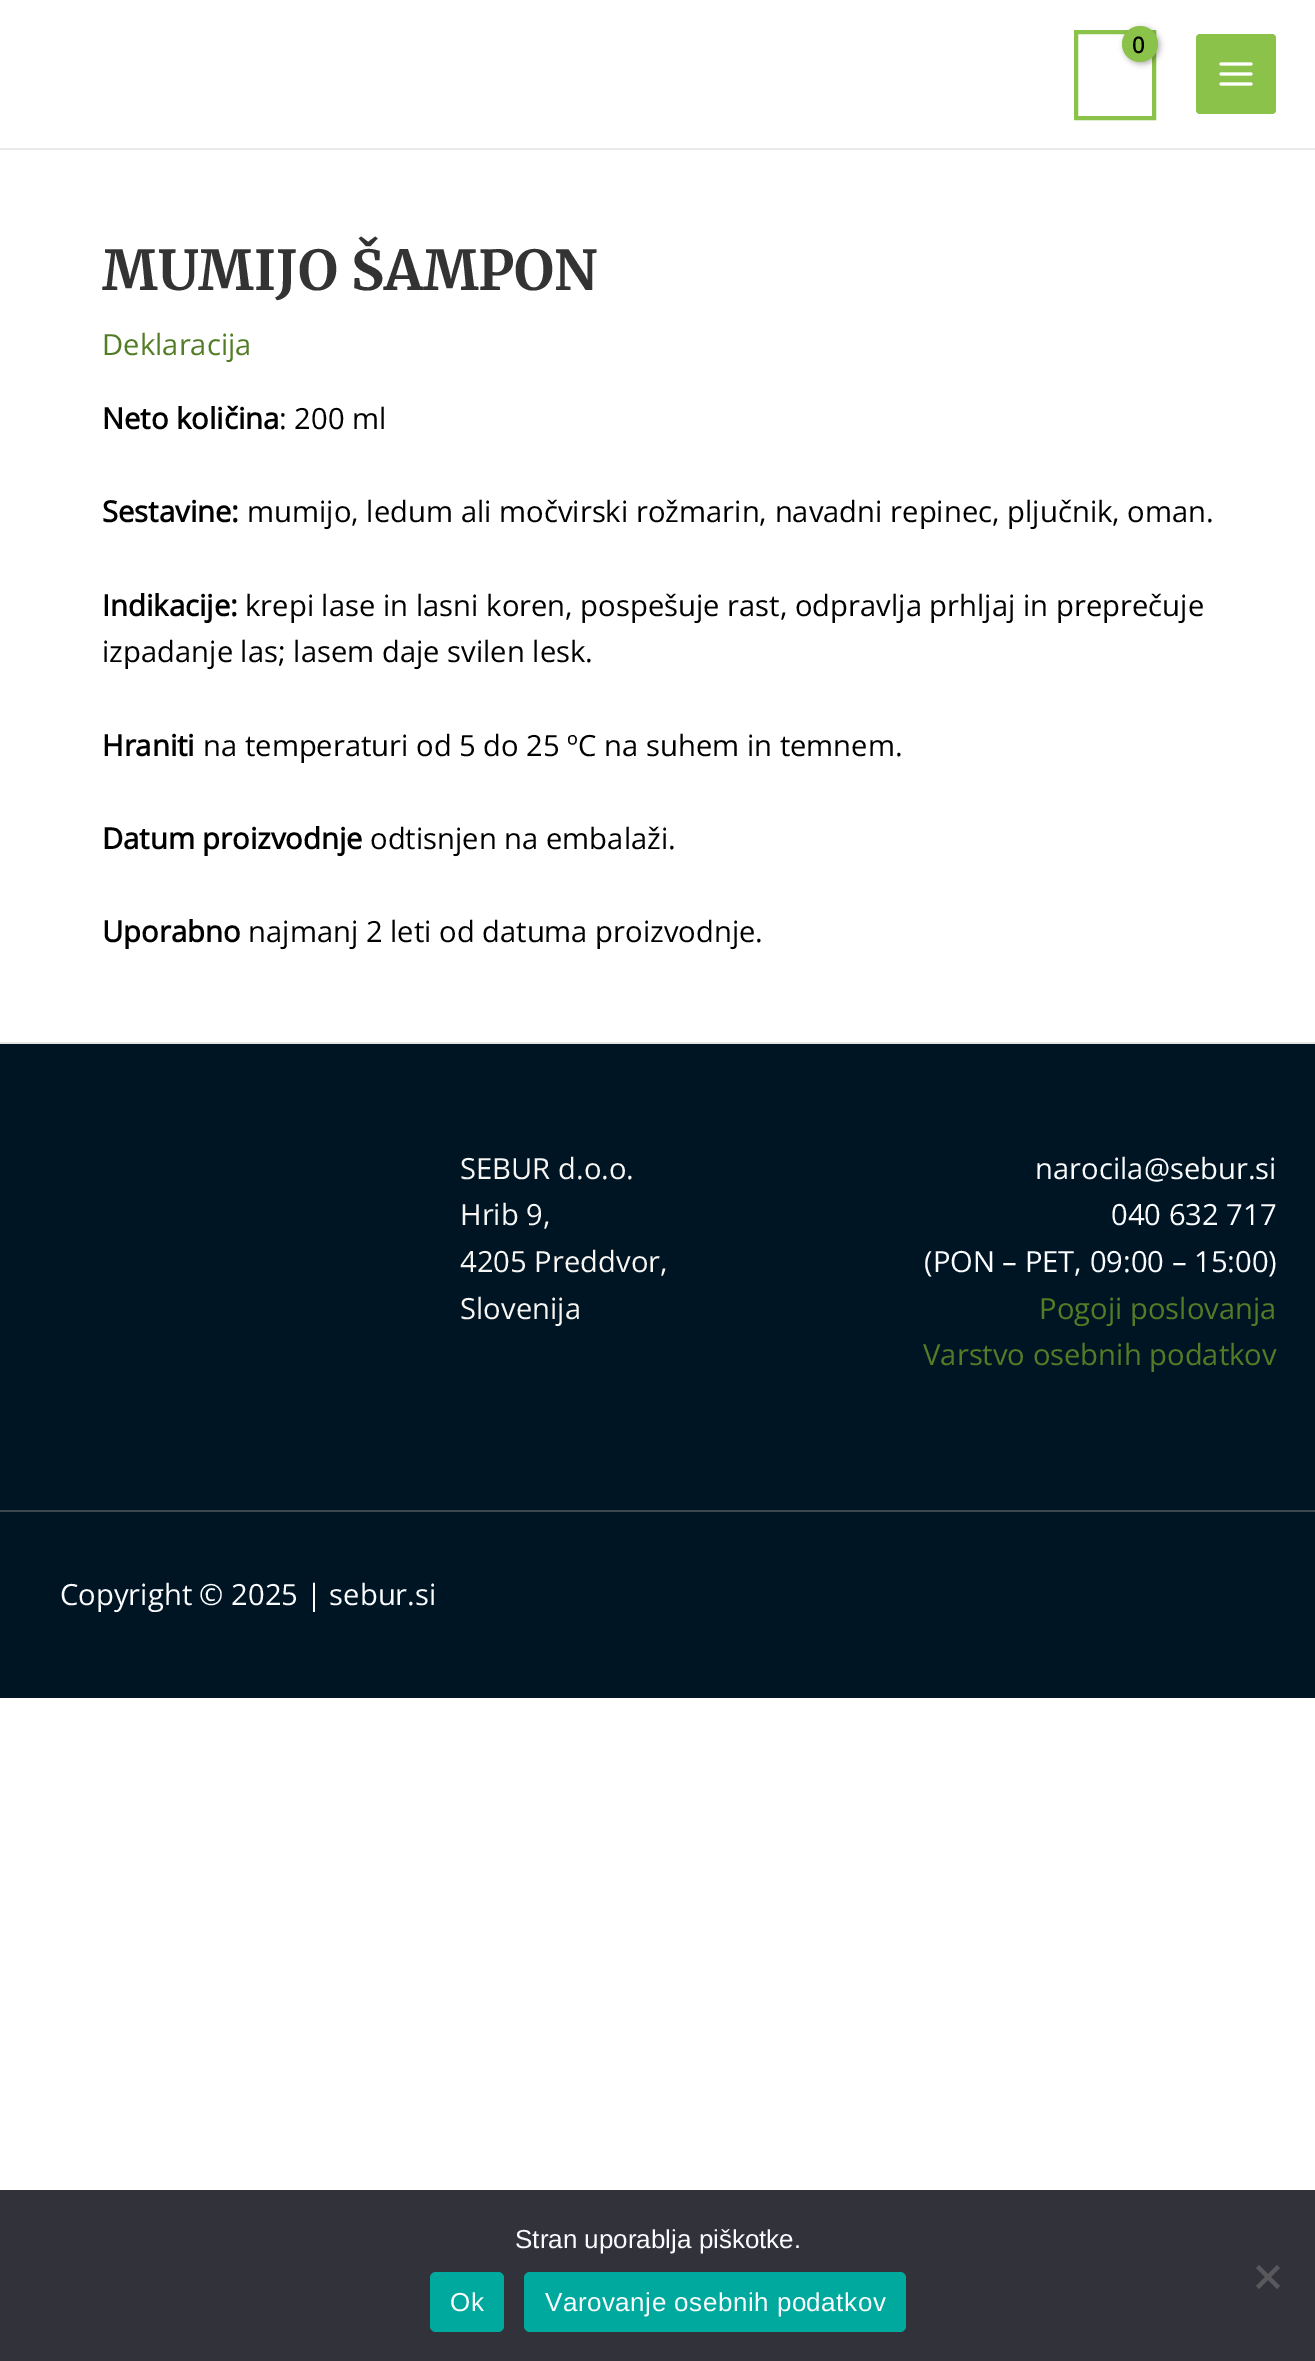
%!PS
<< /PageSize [1315 2361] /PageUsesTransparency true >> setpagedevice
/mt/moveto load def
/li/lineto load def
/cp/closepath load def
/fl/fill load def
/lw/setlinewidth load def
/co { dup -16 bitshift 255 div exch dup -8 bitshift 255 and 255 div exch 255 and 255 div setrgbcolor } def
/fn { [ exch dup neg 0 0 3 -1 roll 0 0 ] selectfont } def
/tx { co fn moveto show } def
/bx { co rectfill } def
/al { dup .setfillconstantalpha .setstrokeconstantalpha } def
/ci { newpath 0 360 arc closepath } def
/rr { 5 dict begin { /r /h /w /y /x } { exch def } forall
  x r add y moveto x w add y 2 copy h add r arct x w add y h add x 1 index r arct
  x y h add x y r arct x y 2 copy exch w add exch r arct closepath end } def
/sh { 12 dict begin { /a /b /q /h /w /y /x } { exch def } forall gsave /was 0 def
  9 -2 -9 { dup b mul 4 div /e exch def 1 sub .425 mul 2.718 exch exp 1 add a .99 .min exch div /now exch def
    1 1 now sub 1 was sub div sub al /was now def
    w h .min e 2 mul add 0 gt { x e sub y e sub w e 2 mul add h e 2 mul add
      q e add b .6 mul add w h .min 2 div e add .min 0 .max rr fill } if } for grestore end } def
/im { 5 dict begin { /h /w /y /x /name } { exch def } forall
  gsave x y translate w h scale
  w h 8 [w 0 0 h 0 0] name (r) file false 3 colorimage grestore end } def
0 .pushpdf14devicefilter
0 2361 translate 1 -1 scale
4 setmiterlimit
0 0 1315 2361 16#FFFFFF bx
0 148 1315 2 16#EAEAEA bx
16#8BC34A co
4 lw
1076 32 78 86 rectstroke
16#000000 co
1124 28 36 36 18 3 .3 sh
16#8BC34A co
1140 44 18 ci fl
1196 34 80 80 4 rr fl
(media/1.raw) 1219 62 34 24 im
0 1044 1315 654 16#001524 bx
0 1042 1315 2 16#E6E6E6 bx
0 1510 1315 2 16#3B464E bx
0 2190 1315 171 16#32323A bx
16#59595D co
1277 2265 mt 1280 2268 li 1259 2289 li 1256 2286 li cp fl
1256 2268 mt 1259 2265 li 1280 2286 li 1277 2289 li cp fl
16#00A99D co
430 2272 74 60 6 rr fl
524 2272 382 60 6 rr fl
/OpenSans-Bold 22 fn
16#000000 co
1132 53 mt -1 0 (0) ashow
(MUMIJO ŠAMPON) 102 290 /Merriweather-Light 54.75 16#333333 tx
(Deklaracija) 102 355 /OpenSans-Regular 29.2 16#527C25 tx
(Neto količina) 102 429 /OpenSans-Bold 29.2 16#000000 tx
(: 200 ml) 279 429 /OpenSans-Regular 29.2 16#000000 tx
(Sestavine:) 102 522 /OpenSans-Bold 29.2 16#000000 tx
(mumijo, ledum ali močvirski rožmarin, navadni repinec, pljučnik, oman.) 247 522 /OpenSans-Regular 29.2 16#000000 tx
(Indikacije:) 102 616 /OpenSans-Bold 29.2 16#000000 tx
(krepi lase in lasni koren, pospešuje rast, odpravlja prhljaj in preprečuje) 245 616 /OpenSans-Regular 29.2 16#000000 tx
(izpadanje las; lasem daje svilen lesk.) 102 662 /OpenSans-Regular 29.2 16#000000 tx
(Hraniti) 102 756 /OpenSans-Bold 29.2 16#000000 tx
(na temperaturi od 5 do 25 ºC na suhem in temnem.) 203 756 /OpenSans-Regular 29.2 16#000000 tx
(Datum proizvodnje) 102 849 /OpenSans-Bold 29.2 16#000000 tx
(odtisnjen na embalaži.) 370 849 /OpenSans-Regular 29.2 16#000000 tx
(Uporabno) 102 942 /OpenSans-Bold 29.2 16#000000 tx
(najmanj 2 leti od datuma proizvodnje.) 248 942 /OpenSans-Regular 29.2 16#000000 tx
(SEBUR d.o.o.) 460 1179 /OpenSans-Regular 29.2 16#F8F6F3 tx
(Hrib 9,) 460 1225 /OpenSans-Regular 29.2 16#F8F6F3 tx
(4205 Preddvor,) 460 1272 /OpenSans-Regular 29.2 16#F8F6F3 tx
(Slovenija) 460 1319 /OpenSans-Regular 29.2 16#F8F6F3 tx
(narocila@sebur.si) 1035 1179 /OpenSans-Regular 29.2 16#FBFCFF tx
(040 632 717) 1111 1225 /OpenSans-Regular 29.2 16#FBFCFF tx
(\(PON – PET, 09:00 – 15:00\)) 924 1272 /OpenSans-Regular 29.2 16#FBFCFF tx
(Pogoji poslovanja) 1039 1319 /OpenSans-Regular 29.2 16#527C25 tx
(Varstvo osebnih podatkov) 923 1365 /OpenSans-Regular 29.2 16#527C25 tx
(Copyright © 2025 | sebur.si) 60 1605 /OpenSans-Regular 29.2 16#FBFCFF tx
(Stran uporablja piškotke.) 515 2248 /LiberationSans-Regular 26 16#FBFCFF tx
450 2311 mt .5 0 (Ok) ashow
545 2311 mt .5 0 (Varovanje osebnih podatkov) ashow
.poppdf14devicefilter showpage
